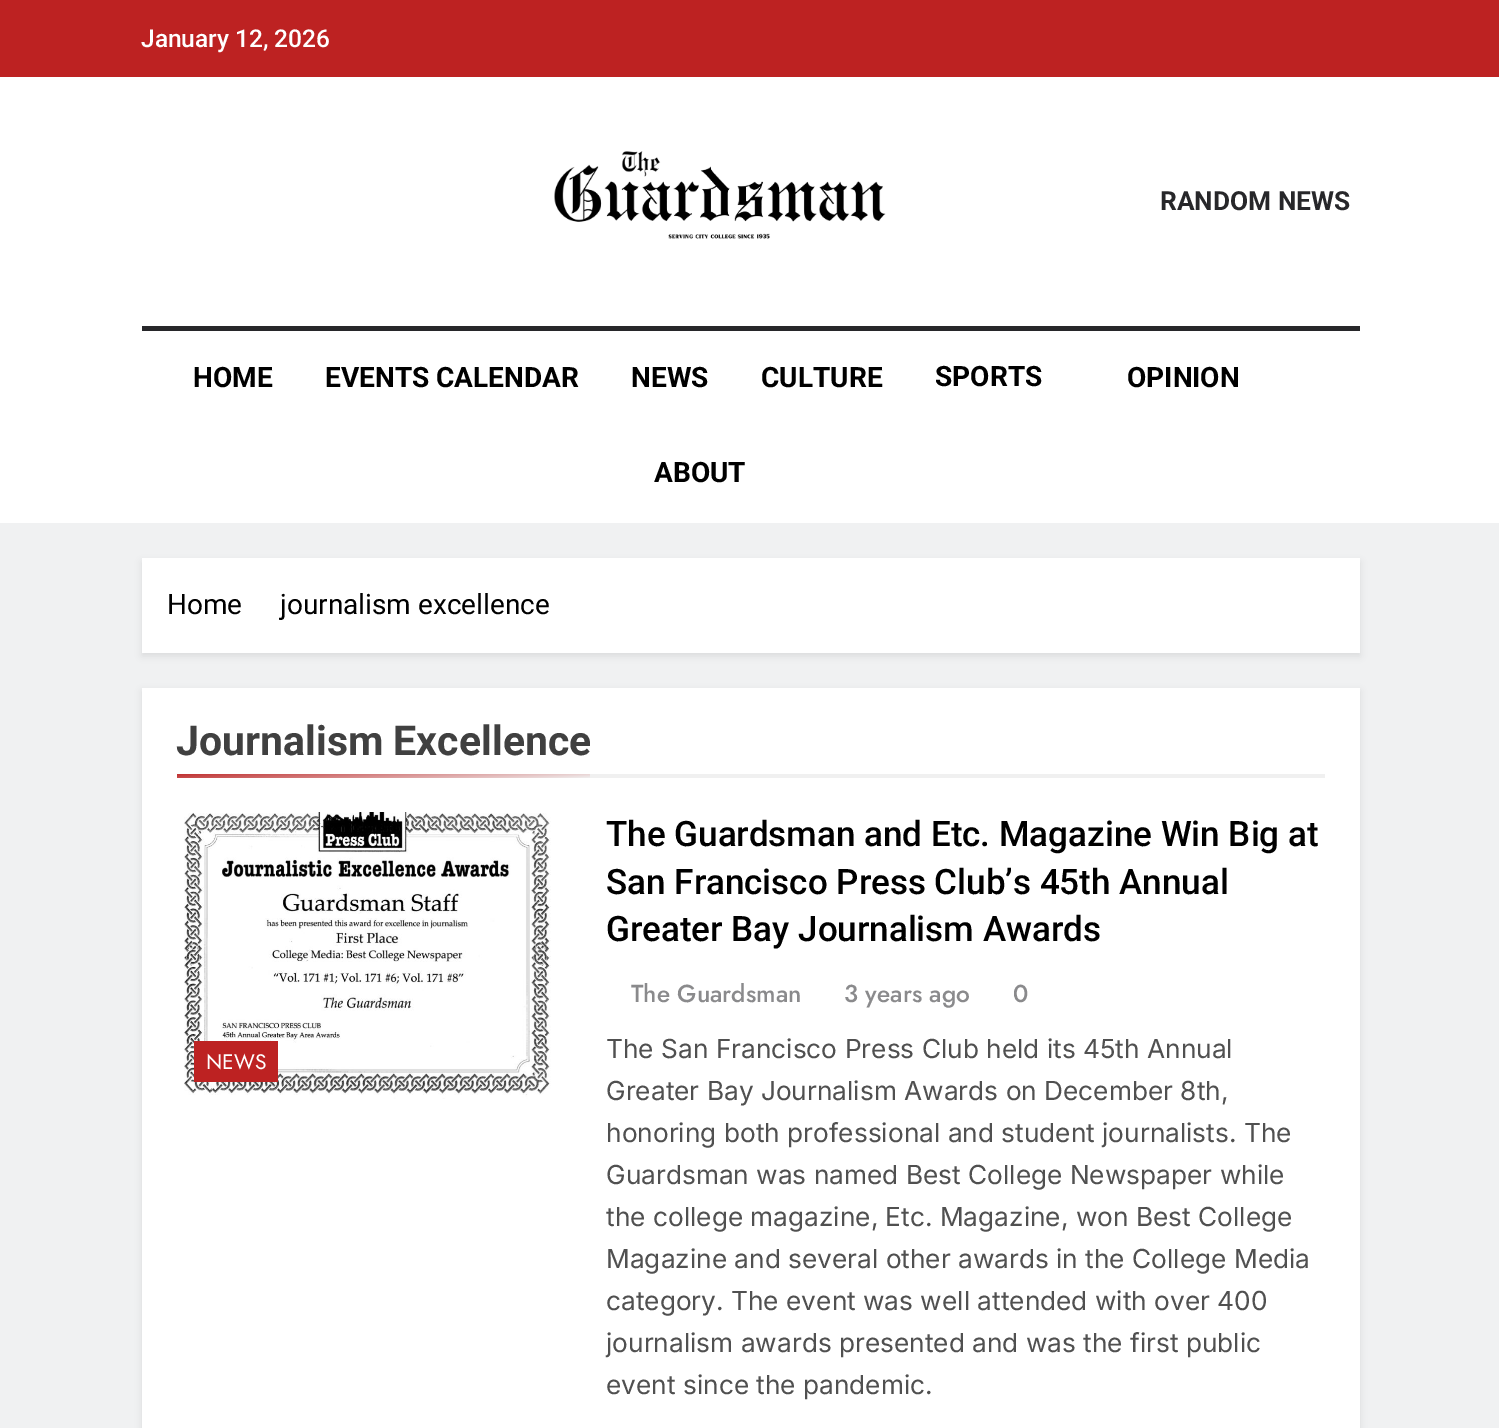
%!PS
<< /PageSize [1499 1428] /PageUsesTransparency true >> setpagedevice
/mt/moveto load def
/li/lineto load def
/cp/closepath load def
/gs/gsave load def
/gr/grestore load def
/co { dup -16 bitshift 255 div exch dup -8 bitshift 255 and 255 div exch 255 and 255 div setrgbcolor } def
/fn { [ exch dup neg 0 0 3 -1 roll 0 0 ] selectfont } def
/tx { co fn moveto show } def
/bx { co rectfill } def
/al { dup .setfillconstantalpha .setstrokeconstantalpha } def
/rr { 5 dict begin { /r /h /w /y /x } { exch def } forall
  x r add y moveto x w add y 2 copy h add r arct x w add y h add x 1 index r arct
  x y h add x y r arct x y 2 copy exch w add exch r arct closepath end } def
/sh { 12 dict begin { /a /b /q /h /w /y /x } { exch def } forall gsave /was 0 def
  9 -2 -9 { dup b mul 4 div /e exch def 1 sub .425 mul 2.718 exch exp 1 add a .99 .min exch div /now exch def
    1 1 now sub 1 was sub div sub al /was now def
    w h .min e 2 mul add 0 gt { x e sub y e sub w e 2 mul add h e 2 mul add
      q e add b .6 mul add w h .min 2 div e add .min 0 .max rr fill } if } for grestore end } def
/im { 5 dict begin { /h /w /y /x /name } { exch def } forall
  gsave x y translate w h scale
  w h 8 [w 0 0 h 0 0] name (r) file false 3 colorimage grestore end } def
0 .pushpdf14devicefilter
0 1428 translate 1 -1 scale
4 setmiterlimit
0 0 1499 1428 16#F0F1F2 bx
0 0 1499 77 16#BD2222 bx
0 77 1499 446 16#FFFFFF bx
(media/1.raw) 554 151 332 88 im
142 326 1218 5 16#27272A bx
16#000000 co
142 562 1218 94 0 3.5 .08 sh
142 558 1218 95 16#FFFFFF bx
16#000000 co
142 691 1218 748 0 3.5 .08 sh
142 688 1218 740 16#FFFFFF bx
590 774 735 4 16#F0F0F0 bx
gs 177 774 mt 590 774 li 590 778 li 177 778 li cp clip newpath
<< /ShadingType 2 /ColorSpace /DeviceRGB /Coords [382 759 384 791] /Extend [true true] /Function << /FunctionType 2 /Domain [0 1] /C0 [.741 .133 .133] /C1 [.941 .941 .941] /N 1 >> >> shfill gr
(media/2.raw) 184 812 367 287 im
194 1041 84 41 16#BD2222 bx
(January 12, 2026) 141 47 /Roboto-Medium 24.5 16#FFFFFF tx
(RANDOM NEWS) 1160 210 /Roboto-Bold 26.25 16#27272A tx
(HOME) 193 387 /Roboto-Bold 28 16#000000 tx
(EVENTS CALENDAR) 325 387 /Roboto-Bold 28 16#000000 tx
(NEWS) 631 387 /Roboto-Bold 28 16#000000 tx
(CULTURE) 761 387 /Roboto-Bold 28 16#000000 tx
(SPORTS) 935 386 /Roboto-Bold 28 16#000000 tx
(OPINION) 1127 387 /Roboto-Bold 28 16#000000 tx
(ABOUT) 654 482 /Roboto-Bold 28 16#000000 tx
(Home) 167 614 /Roboto-Regular 28 16#000000 tx
(journalism excellence) 280 614 /Roboto-Regular 28 16#000000 tx
(Journalism Excellence) 176 755 /Roboto-Bold 41 16#404040 tx
(NEWS) 206 1069 /Jost-Regular 21 16#FFFFFF tx
(The Guardsman and Etc. Magazine Win Big at) 606 846 /Roboto-Medium 35 16#000000 tx
(San Francisco Press Club’s 45th Annual) 606 894 /Roboto-Medium 35 16#000000 tx
(Greater Bay Journalism Awards) 606 941 /Roboto-Medium 35 16#000000 tx
(The Guardsman) 631 1002 /Jost-Medium 24.5 16#8A8A8C tx
(3 years ago) 844 1002 /Jost-Medium 24.5 16#8A8A8C tx
(0) 1013 1002 /Jost-Medium 24.5 16#8A8A8C tx
(The San Francisco Press Club held its 45th Annual) 606 1058 /Inter-Regular 26.25 16#505050 tx
(Greater Bay Journalism Awards on December 8th,) 606 1100 /Inter-Regular 26.25 16#505050 tx
(honoring both professional and student journalists. The) 606 1142 /Inter-Regular 26.25 16#505050 tx
(Guardsman was named Best College Newspaper while) 606 1184 /Inter-Regular 26.25 16#505050 tx
(the college magazine, Etc. Magazine, won Best College) 606 1226 /Inter-Regular 26.25 16#505050 tx
(Magazine and several other awards in the College Media) 606 1268 /Inter-Regular 26.25 16#505050 tx
(category. The event was well attended with over 400) 606 1310 /Inter-Regular 26.25 16#505050 tx
(journalism awards presented and was the first public) 606 1352 /Inter-Regular 26.25 16#505050 tx
(event since the pandemic.) 606 1394 /Inter-Regular 26.25 16#505050 tx
.poppdf14devicefilter showpage
